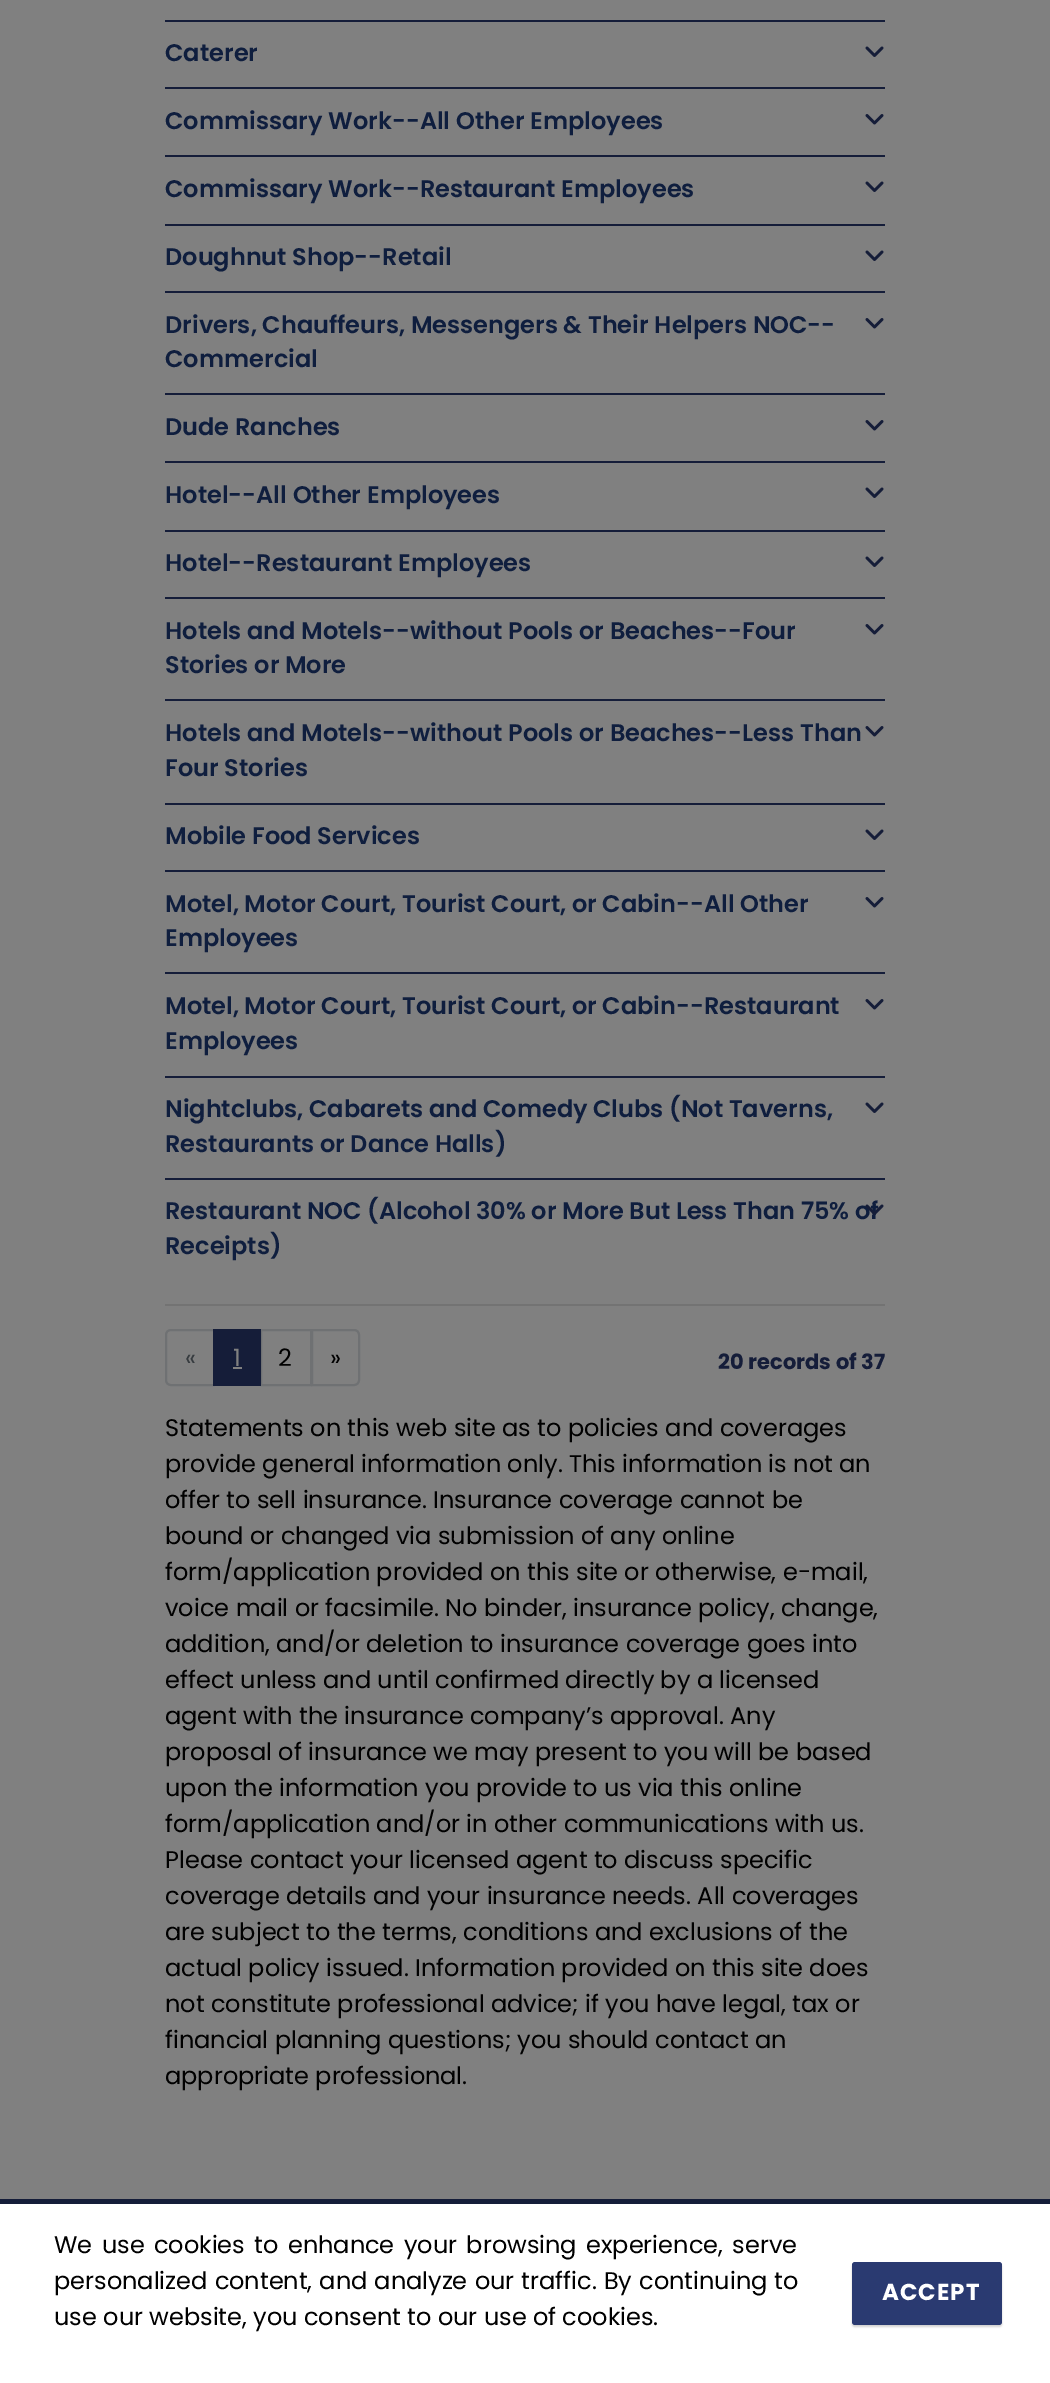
%!PS
<< /PageSize [1050 2383] /PageUsesTransparency true >> setpagedevice
/mt/moveto load def
/li/lineto load def
/ct/curveto load def
/cp/closepath load def
/fl/fill load def
/st/stroke load def
/gs/gsave load def
/gr/grestore load def
/lw/setlinewidth load def
/co { dup -16 bitshift 255 div exch dup -8 bitshift 255 and 255 div exch 255 and 255 div setrgbcolor } def
/fn { [ exch dup neg 0 0 3 -1 roll 0 0 ] selectfont } def
/tx { co fn moveto show } def
/bx { co rectfill } def
/al { dup .setfillconstantalpha .setstrokeconstantalpha } def
/rr { 5 dict begin { /r /h /w /y /x } { exch def } forall
  x r add y moveto x w add y 2 copy h add r arct x w add y h add x 1 index r arct
  x y h add x y r arct x y 2 copy exch w add exch r arct closepath end } def
/sh { 12 dict begin { /a /b /q /h /w /y /x } { exch def } forall gsave /was 0 def
  9 -2 -9 { dup b mul 4 div /e exch def 1 sub .425 mul 2.718 exch exp 1 add a .99 .min exch div /now exch def
    1 1 now sub 1 was sub div sub al /was now def
    w h .min e 2 mul add 0 gt { x e sub y e sub w e 2 mul add h e 2 mul add
      q e add b .6 mul add w h .min 2 div e add .min 0 .max rr fill } if } for grestore end } def
/im { 5 dict begin { /h /w /y /x /name } { exch def } forall
  gsave x y translate w h scale
  w h 8 [w 0 0 h 0 0] name (r) file false 3 colorimage grestore end } def
0 .pushpdf14devicefilter
0 2383 translate 1 -1 scale
4 setmiterlimit
0 0 1050 2383 16#808080 bx
165 20 720 2 16#151D39 bx
(media/1.raw) 865 46 19 11 im
165 87 720 2 16#151D39 bx
(media/2.raw) 865 114 19 11 im
165 155 720 2 16#151D39 bx
(media/1.raw) 865 181 19 11 im
165 224 720 2 16#151D39 bx
(media/1.raw) 865 250 19 11 im
165 291 720 2 16#151D39 bx
(media/2.raw) 865 318 19 11 im
165 393 720 2 16#151D39 bx
(media/2.raw) 865 420 19 11 im
165 461 720 2 16#151D39 bx
(media/1.raw) 865 487 19 11 im
165 530 720 2 16#151D39 bx
(media/1.raw) 865 556 19 11 im
165 597 720 2 16#151D39 bx
(media/2.raw) 865 624 19 11 im
165 699 720 2 16#151D39 bx
(media/2.raw) 865 726 19 11 im
165 803 720 2 16#151D39 bx
(media/1.raw) 865 829 19 11 im
165 870 720 2 16#151D39 bx
(media/2.raw) 865 897 19 11 im
165 972 720 2 16#151D39 bx
(media/2.raw) 865 999 19 11 im
165 1076 720 2 16#151D39 bx
(media/1.raw) 865 1102 19 11 im
165 1178 720 2 16#151D39 bx
165 1304 720 2 16#737373 bx
16#6F7173 co
2 lw
171 1330 mt 214 1330 li 214 1385 li 171 1385 li 168 1385 166 1383 166 1380 ct 166 1335 li 166 1332 168 1330 171 1330 ct cp st
261 1330 50 55 rectstroke
213 1329 48 57 16#151D39 bx
233 1367 9 2 16#808080 bx
312 1330 mt 354 1330 li 357 1330 359 1332 359 1335 ct 359 1380 li 359 1383 357 1385 354 1385 ct 312 1385 li cp gs fl gr
16#6F7173 co
st
0 2199 1050 5 16#151D39 bx
0 2204 1050 179 16#FFFFFF bx
16#000000 co
852 2264 150 63 3 1 .18 sh
16#2A3A71 co
852 2262 150 63 3 rr fl
(Caterer) 165 61 /Poppins-SemiBold 24 16#0F1E3E tx
(Commissary Work--All Other Employees) 165 129 /Poppins-SemiBold 24 16#0F1E3E tx
(Commissary Work--Restaurant Employees) 165 197 /Poppins-SemiBold 24 16#0F1E3E tx
(Doughnut Shop--Retail) 165 265 /Poppins-SemiBold 24 16#0F1E3E tx
(Drivers, Chauffeurs, Messengers & Their Helpers NOC--) 165 333 /Poppins-SemiBold 24 16#0F1E3E tx
(Commercial) 165 367 /Poppins-SemiBold 24 16#0F1E3E tx
(Dude Ranches) 165 435 /Poppins-SemiBold 24 16#0F1E3E tx
(Hotel--All Other Employees) 165 503 /Poppins-SemiBold 24 16#0F1E3E tx
(Hotel--Restaurant Employees) 165 571 /Poppins-SemiBold 24 16#0F1E3E tx
(Hotels and Motels--without Pools or Beaches--Four) 165 639 /Poppins-SemiBold 24 16#0F1E3E tx
(Stories or More) 165 673 /Poppins-SemiBold 24 16#0F1E3E tx
(Hotels and Motels--without Pools or Beaches--Less Than) 165 741 /Poppins-SemiBold 24 16#0F1E3E tx
(Four Stories) 165 776 /Poppins-SemiBold 24 16#0F1E3E tx
(Mobile Food Services) 165 844 /Poppins-SemiBold 24 16#0F1E3E tx
(Motel, Motor Court, Tourist Court, or Cabin--All Other) 165 912 /Poppins-SemiBold 24 16#0F1E3E tx
(Employees) 165 946 /Poppins-SemiBold 24 16#0F1E3E tx
(Motel, Motor Court, Tourist Court, or Cabin--Restaurant) 165 1014 /Poppins-SemiBold 24 16#0F1E3E tx
(Employees) 165 1049 /Poppins-SemiBold 24 16#0F1E3E tx
(Nightclubs, Cabarets and Comedy Clubs \(Not Taverns,) 165 1117 /Poppins-SemiBold 24 16#0F1E3E tx
(Restaurants or Dance Halls\)) 165 1152 /Poppins-SemiBold 24 16#0F1E3E tx
(Restaurant NOC \(Alcohol 30% or More But Less Than 75% of) 165 1219 /Poppins-SemiBold 24 16#0F1E3E tx
(media/3.raw) 865 1204 19 11 im
(Receipts\)) 165 1254 /Poppins-SemiBold 24 16#0F1E3E tx
(«) 185 1366 /Poppins-Regular 24 16#363B3F tx
(1) 233 1366 /Poppins-Regular 24 16#808080 tx
(2) 278 1366 /Poppins-Regular 24 16#000000 tx
(») 330 1366 /Poppins-Regular 24 16#000000 tx
(20 records of 37) 718 1369 /Poppins-Bold 21 16#151D39 tx
(Statements on this web site as to policies and coverages) 165 1436 /Poppins-Regular 24 16#000000 tx
(provide general information only. This information is not an) 165 1472 /Poppins-Regular 24 16#000000 tx
(offer to sell insurance. Insurance coverage cannot be) 165 1508 /Poppins-Regular 24 16#000000 tx
(bound or changed via submission of any online) 165 1544 /Poppins-Regular 24 16#000000 tx
(form/application provided on this site or otherwise, e-mail,) 165 1580 /Poppins-Regular 24 16#000000 tx
(voice mail or facsimile. No binder, insurance policy, change,) 165 1616 /Poppins-Regular 24 16#000000 tx
(addition, and/or deletion to insurance coverage goes into) 165 1652 /Poppins-Regular 24 16#000000 tx
(effect unless and until confirmed directly by a licensed) 165 1688 /Poppins-Regular 24 16#000000 tx
(agent with the insurance company’s approval. Any) 165 1724 /Poppins-Regular 24 16#000000 tx
(proposal of insurance we may present to you will be based) 165 1760 /Poppins-Regular 24 16#000000 tx
(upon the information you provide to us via this online) 165 1796 /Poppins-Regular 24 16#000000 tx
(form/application and/or in other communications with us.) 165 1832 /Poppins-Regular 24 16#000000 tx
(Please contact your licensed agent to discuss specific) 165 1868 /Poppins-Regular 24 16#000000 tx
(coverage details and your insurance needs. All coverages) 165 1904 /Poppins-Regular 24 16#000000 tx
(are subject to the terms, conditions and exclusions of the) 165 1940 /Poppins-Regular 24 16#000000 tx
(actual policy issued. Information provided on this site does) 165 1976 /Poppins-Regular 24 16#000000 tx
(not constitute professional advice; if you have legal, tax or) 165 2012 /Poppins-Regular 24 16#000000 tx
(financial planning questions; you should contact an) 165 2048 /Poppins-Regular 24 16#000000 tx
(appropriate professional.) 165 2084 /Poppins-Regular 24 16#000000 tx
54 2253 mt 3 0 32 (We use cookies to enhance your browsing experience, serve) widthshow
54 2289 mt .75 0 32 (personalized content, and analyze our traffic. By continuing to) widthshow
(use our website, you consent to our use of cookies.) 54 2325 /Poppins-Regular 24 16#000000 tx
/Poppins-Bold 23 fn
16#FFFFFF co
882 2300 mt 1 0 (ACCEPT) ashow
.poppdf14devicefilter showpage
